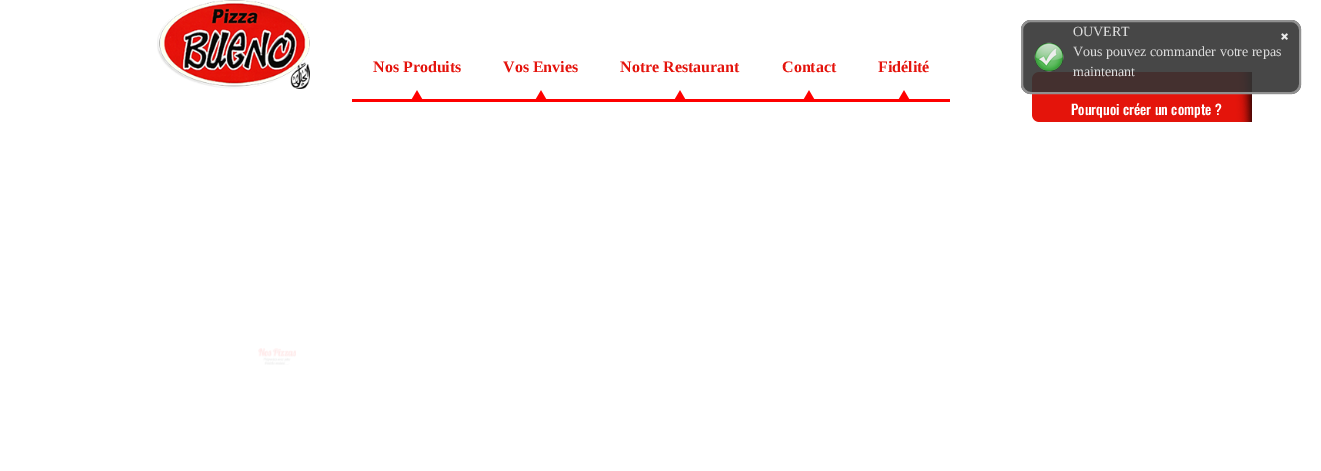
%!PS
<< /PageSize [1321 471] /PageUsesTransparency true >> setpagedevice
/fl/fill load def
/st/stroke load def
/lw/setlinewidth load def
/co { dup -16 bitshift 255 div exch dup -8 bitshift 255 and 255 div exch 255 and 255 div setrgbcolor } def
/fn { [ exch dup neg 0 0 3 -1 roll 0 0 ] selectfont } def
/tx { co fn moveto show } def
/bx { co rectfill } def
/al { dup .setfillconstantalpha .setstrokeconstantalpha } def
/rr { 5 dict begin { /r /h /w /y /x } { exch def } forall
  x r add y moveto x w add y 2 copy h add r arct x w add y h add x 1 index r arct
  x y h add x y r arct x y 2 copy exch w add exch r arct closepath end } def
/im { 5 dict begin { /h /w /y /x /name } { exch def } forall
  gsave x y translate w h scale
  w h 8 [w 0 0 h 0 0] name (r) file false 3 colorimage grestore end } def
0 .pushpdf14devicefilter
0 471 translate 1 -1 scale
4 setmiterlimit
0 0 1321 471 16#FFFFFF bx
(media/5.raw) 1032 72 220 50 im
0.9 al
16#333333 co
1021 20 280 74 10 rr fl
16#999999 co
2 lw
1022 21 278 72 9 rr st
1 al
(media/1.raw) 1281 33 7 7 im
(media/2.raw) 1034 42 30 30 im
(media/3.raw) 157 0 153 89 im
352 99 598 3 16#FE0000 bx
(media/4.raw) 411 90 12 9 im
(media/4.raw) 535 90 12 9 im
(media/4.raw) 674 90 12 9 im
(media/4.raw) 803 90 12 9 im
(media/4.raw) 898 90 12 9 im
(media/6.raw) 258 348 38 17 im
(OUVERT) 1073 36 /LiberationSerif-Regular 14 16#DDDDDD tx
(Vous pouvez commander votre repas) 1073 56 /LiberationSerif-Regular 14 16#DDDDDD tx
(maintenant) 1073 76 /LiberationSerif-Regular 14 16#DDDDDD tx
(Nos Produits) 373 72 /LiberationSerif-Bold 16 16#E4140D tx
(Vos Envies) 503 72 /LiberationSerif-Bold 16 16#E4140D tx
(Notre Restaurant) 620 72 /LiberationSerif-Bold 16 16#E4140D tx
(Contact) 782 72 /LiberationSerif-Bold 16 16#E4140D tx
(Fidélité) 878 72 /LiberationSerif-Bold 16 16#E4140D tx
(Pourquoi créer un compte ?) 1071 115 /Oswald-Medium 14 16#FFFFFF tx
.poppdf14devicefilter showpage
